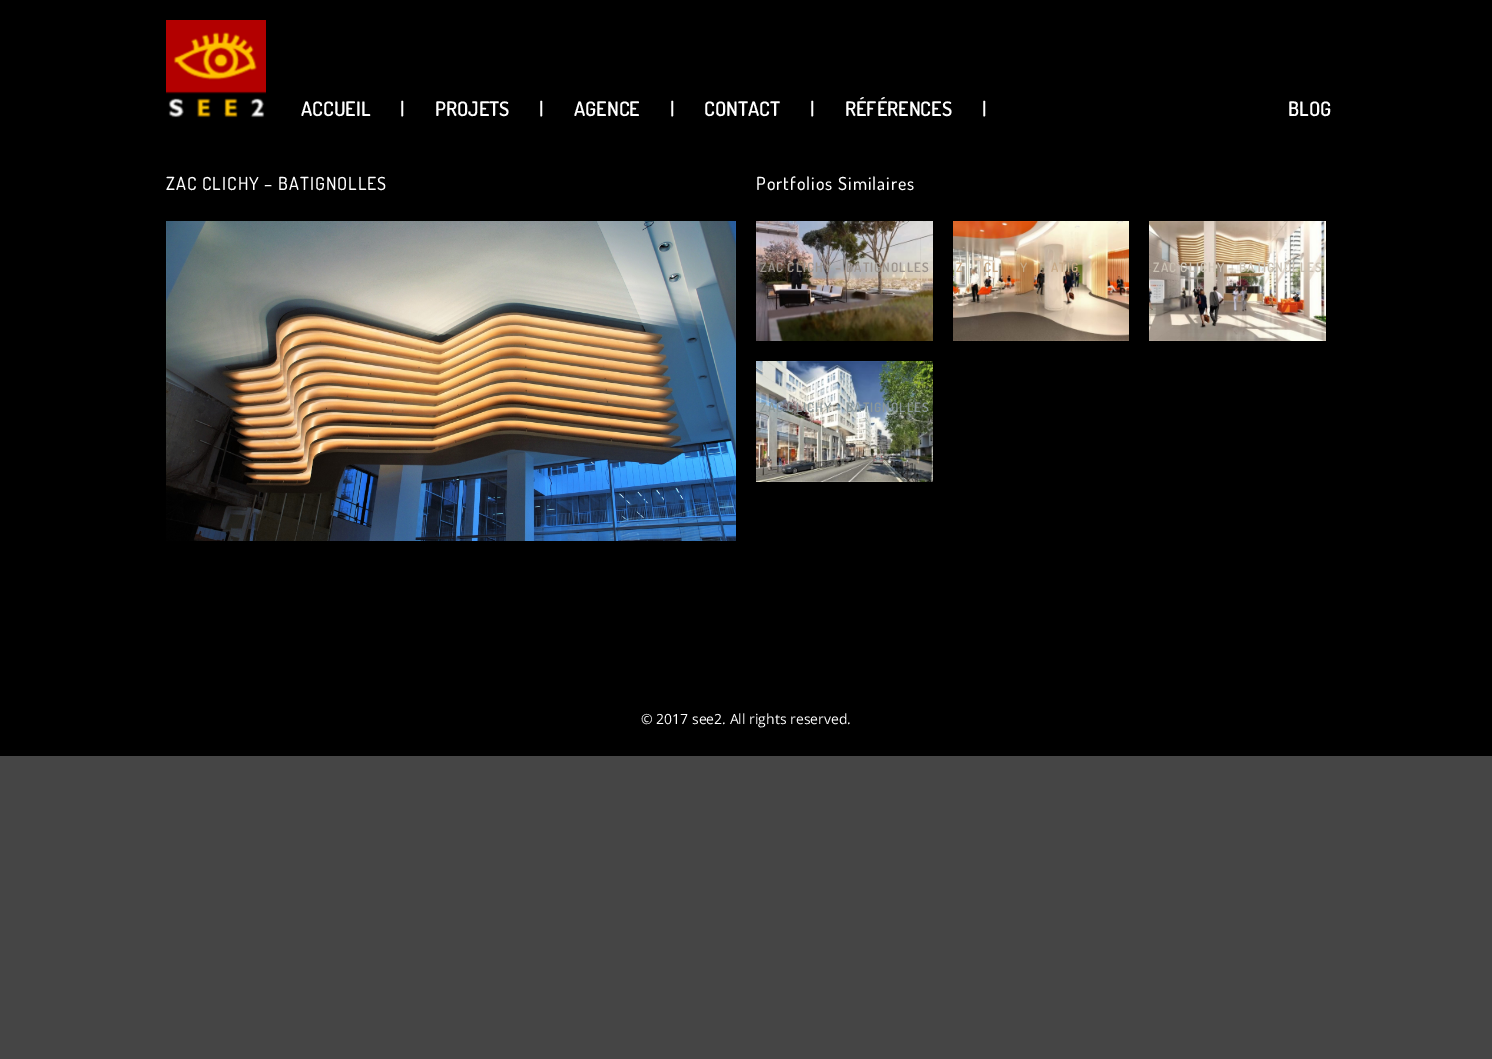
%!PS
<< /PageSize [1492 1059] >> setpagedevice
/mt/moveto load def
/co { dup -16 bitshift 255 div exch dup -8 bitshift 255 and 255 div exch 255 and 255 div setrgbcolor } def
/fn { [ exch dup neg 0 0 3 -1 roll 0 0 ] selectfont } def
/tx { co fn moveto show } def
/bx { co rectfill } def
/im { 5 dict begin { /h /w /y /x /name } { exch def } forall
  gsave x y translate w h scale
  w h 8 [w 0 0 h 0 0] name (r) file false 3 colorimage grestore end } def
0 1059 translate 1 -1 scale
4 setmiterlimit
0 0 1492 1059 16#454545 bx
0 0 1492 756 16#000000 bx
(media/1.raw) 166 20 100 98 im
(media/2.raw) 166 221 570 320 im
(media/3.raw) 756 221 177 120 im
(media/4.raw) 953 221 176 120 im
(media/5.raw) 1149 221 177 120 im
(media/6.raw) 756 361 177 121 im
(ACCUEIL) 301 116 /Dosis-SemiBold 20 16#FFFFFF tx
(|) 400 116 /Dosis-SemiBold 20 16#FFFFFF tx
(PROJETS) 435 116 /Dosis-SemiBold 20 16#FFFFFF tx
(|) 539 116 /Dosis-SemiBold 20 16#FFFFFF tx
(AGENCE) 574 116 /Dosis-SemiBold 20 16#FFFFFF tx
(|) 670 116 /Dosis-SemiBold 20 16#FFFFFF tx
(CONTACT) 704 116 /Dosis-SemiBold 20 16#FFFFFF tx
(|) 810 116 /Dosis-SemiBold 20 16#FFFFFF tx
(RÉFÉRENCES) 845 116 /Dosis-SemiBold 20 16#FFFFFF tx
(|) 982 116 /Dosis-SemiBold 20 16#FFFFFF tx
(BLOG) 1288 116 /Dosis-SemiBold 20 16#FFFFFF tx
/Dosis-Medium 18 fn
166 190 mt 1 0 (ZAC CLICHY – BATIGNOLLES) ashow
756 190 mt 1 0 (Portfolios Similaires) ashow
/Dosis-SemiBold 13 fn
16#9C948D co
760 272 mt 1 0 (ZAC CLICHY – BATIGNOLLES) ashow
16#C8AA87 co
956 272 mt 1 0 (Z) ashow
984 272 mt 1 0 (CL) ashow
1020 272 mt 1 0 (Y) ashow
1051 272 mt 1 0 (ATIG) ashow
16#CAC1B3 co
1153 272 mt 1 0 (ZAC CLICHY – BATIGNOLLES) ashow
16#8C9899 co
760 412 mt 1 0 (ZAC CLICHY – BATIGNOLLES) ashow
(© 2017 see2. All rights reserved.) 641 724 /OpenSans-Regular 14 16#FFFFFF tx
showpage
